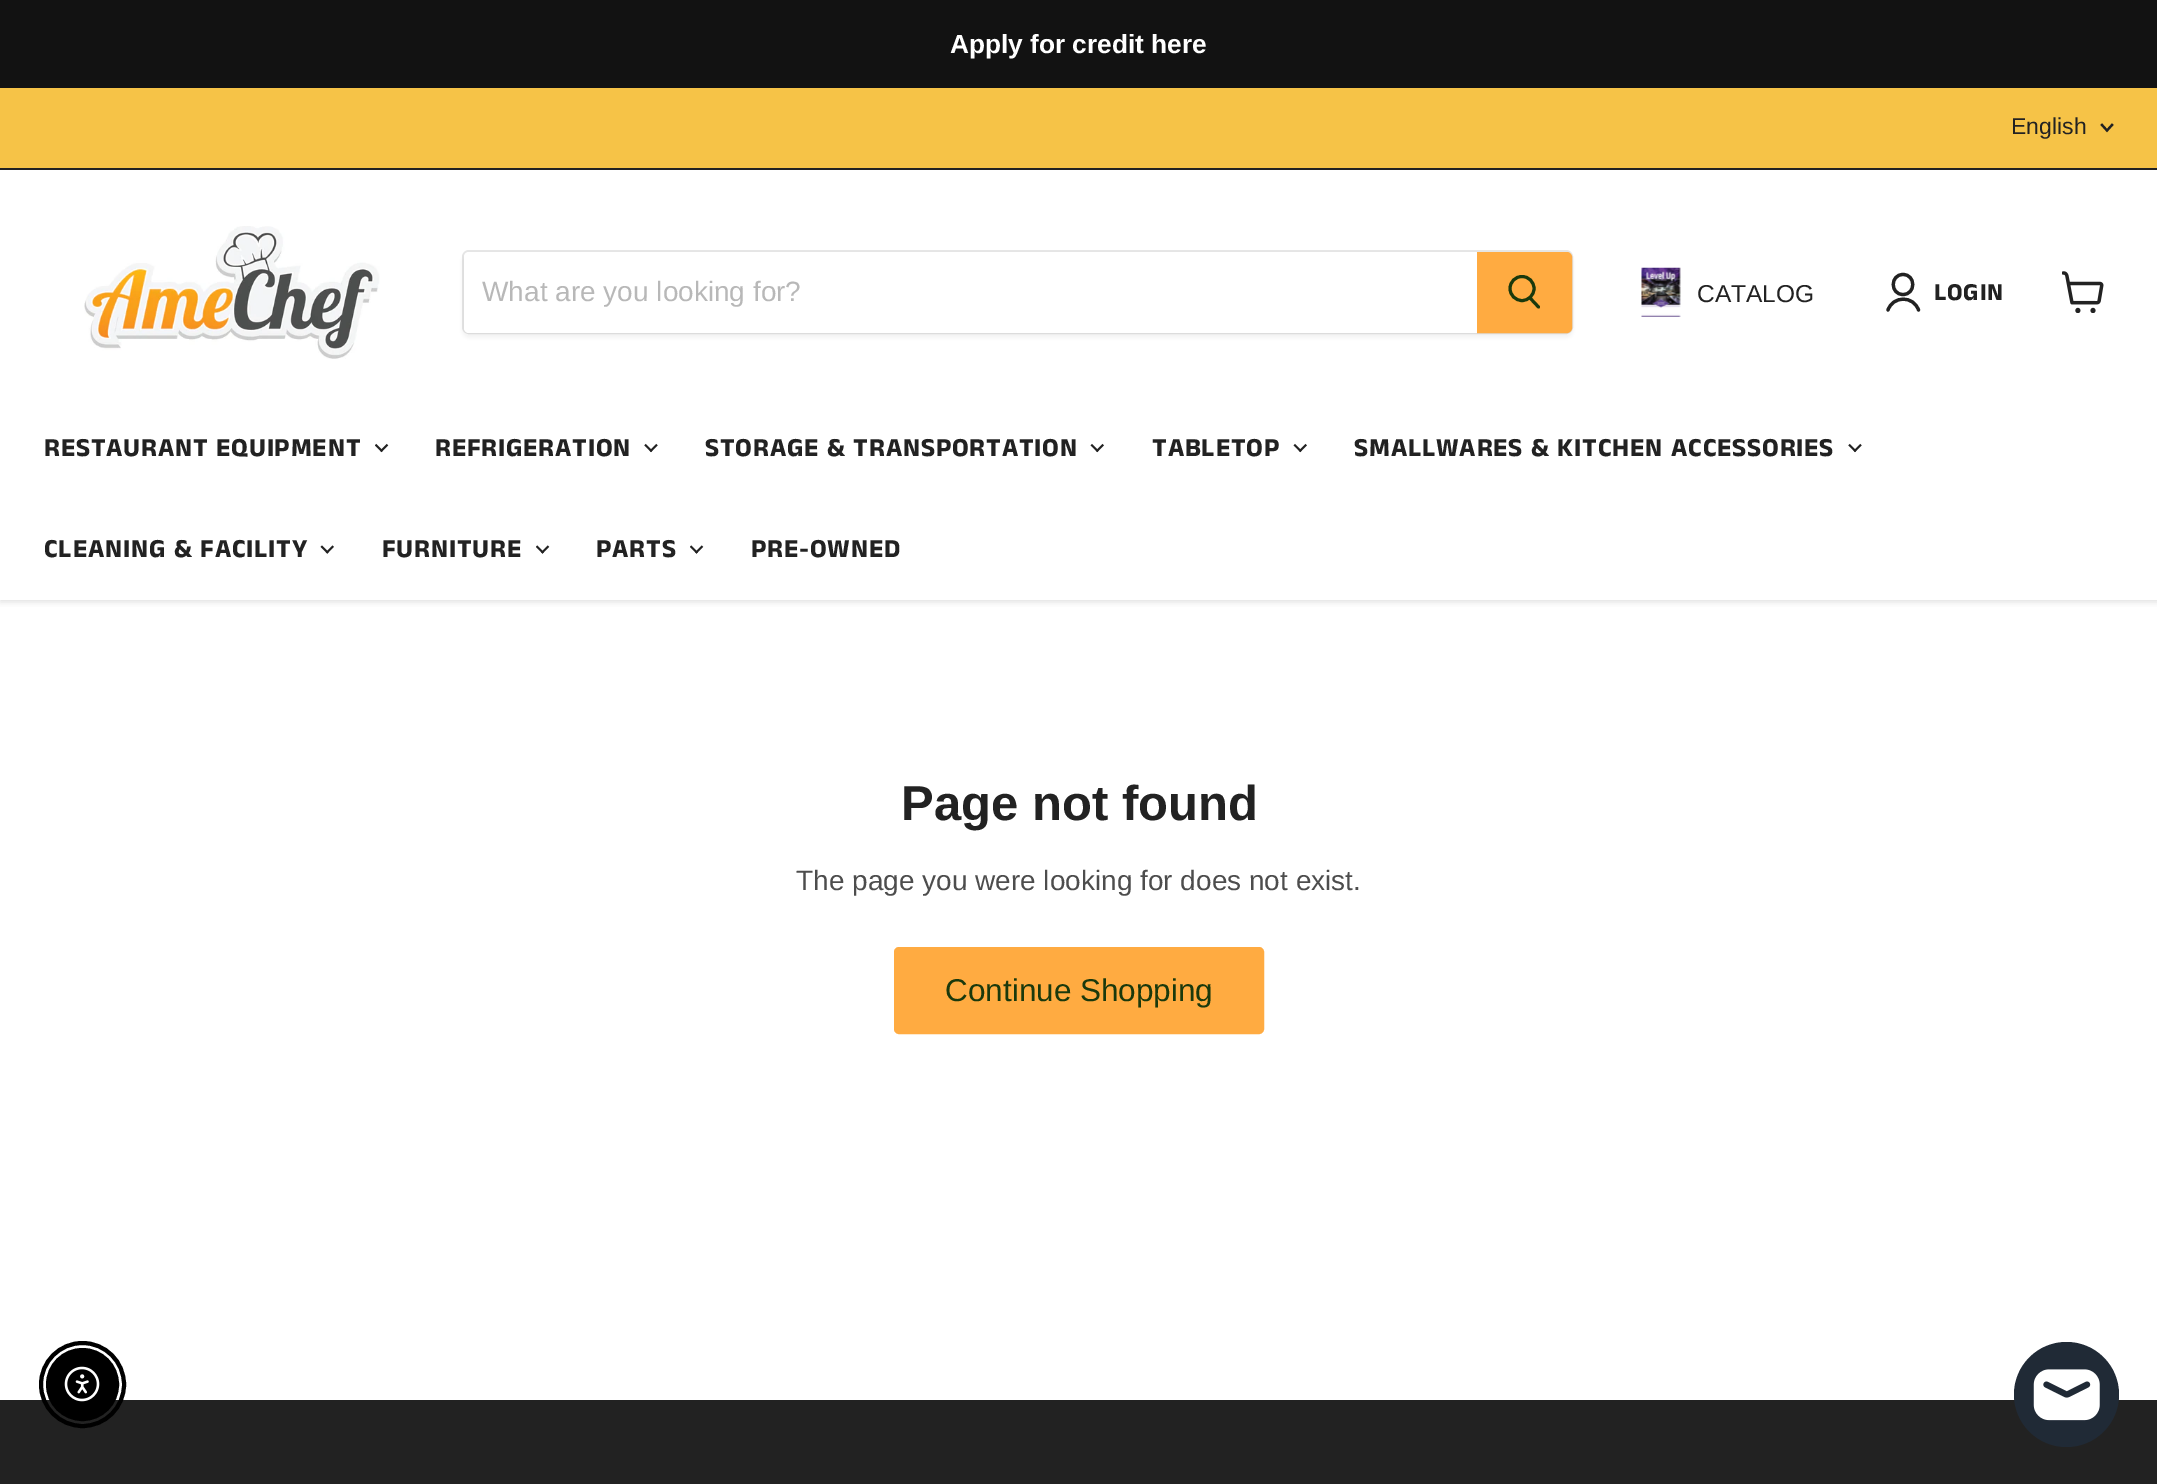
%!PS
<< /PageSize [2157 1484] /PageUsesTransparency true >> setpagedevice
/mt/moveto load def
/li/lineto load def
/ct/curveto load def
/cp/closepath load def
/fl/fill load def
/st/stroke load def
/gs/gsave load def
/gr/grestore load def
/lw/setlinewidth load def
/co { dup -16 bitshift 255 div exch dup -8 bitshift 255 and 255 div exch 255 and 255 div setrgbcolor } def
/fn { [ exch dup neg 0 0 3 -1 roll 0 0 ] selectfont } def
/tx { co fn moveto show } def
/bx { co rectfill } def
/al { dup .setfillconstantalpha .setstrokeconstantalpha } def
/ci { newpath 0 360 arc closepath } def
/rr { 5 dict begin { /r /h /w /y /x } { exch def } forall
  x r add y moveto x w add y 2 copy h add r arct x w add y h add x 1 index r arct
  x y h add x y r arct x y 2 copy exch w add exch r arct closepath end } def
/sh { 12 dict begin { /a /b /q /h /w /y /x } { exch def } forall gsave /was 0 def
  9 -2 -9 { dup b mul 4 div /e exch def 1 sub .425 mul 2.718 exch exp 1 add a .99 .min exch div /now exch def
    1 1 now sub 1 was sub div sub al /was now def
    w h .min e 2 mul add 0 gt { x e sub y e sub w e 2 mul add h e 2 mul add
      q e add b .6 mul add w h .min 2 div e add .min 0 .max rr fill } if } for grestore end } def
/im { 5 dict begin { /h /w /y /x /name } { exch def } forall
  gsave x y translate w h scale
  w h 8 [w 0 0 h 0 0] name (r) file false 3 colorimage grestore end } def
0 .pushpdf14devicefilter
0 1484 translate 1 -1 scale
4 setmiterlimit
0 0 2157 1484 16#FFFFFF bx
0 0 2157 88 16#121212 bx
gs
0 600 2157 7 rectclip
16#808080 co
0 172 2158 430 0 3.5 .25 sh
gr
0 88 2157 80 16#F6C347 bx
0 168 2157 2 16#222222 bx
2.2 lw
2 setlinecap
2107 130.5 mt 2112 125 li 2107 130.5 mt 2102 125 li st
(media/1.raw) 84 226 296 133 im
16#808080 co
462 254 1111 84 7 2.5 .11 sh
0.2 al
2 lw
0 setlinecap
463 251 1109 82 6 rr st
1 al
16#FFFFFF co
469 252 mt 1477 252 li 1477 333 li 469 333 li 466 333 464 331 464 328 ct 464 257 li 464 254 466 252 469 252 ct cp fl
16#FFAB41 co
1478 253 mt 1567 253 li 1569 253 1571 255 1571 257 ct 1571 328 li 1571 330 1569 332 1567 332 ct 1478 332 li cp gs fl gr
st
16#1A390C co
3 lw
1 setlinecap
1538.5 307 mt 1530.5 298.5 li st
0 setlinecap
1522 288.5 12 ci st
(media/2.raw) 1641 267 40 50 im
16#222222 co
3.2 lw
1 setlinecap
1 setlinejoin
1903 294.5 mt 1916 294.5 1916 274.5 1903 274.5 ct 1890 274.5 1890 294.5 1903 294.5 ct cp 1918.5 310 mt 1913.5 295.5 1893 295.5 1888 310 ct st
(media/3.raw) 2062 271 42 42 im
(media/4.raw) 375 443 14 10 im
(media/5.raw) 644 443 14 10 im
(media/6.raw) 1090 443 14 10 im
(media/6.raw) 1293 443 14 10 im
(media/5.raw) 1848 443 14 10 im
(media/7.raw) 320 545 14 9 im
(media/8.raw) 536 545 14 9 im
(media/8.raw) 690 545 14 9 im
16#FFAB41 co
895 948 368 85 4 rr gs fl gr
2 lw
0 setlinecap
0 setlinejoin
st
0 1400 2157 84 16#222222 bx
16#000000 co
4 lw
82.5 1384.5 41.5 ci st
82.5 1384.5 35.5 ci gs fl gr
2 lw
st
(media/9.raw) 64 1366 36 36 im
16#202A36 co
2066.5 1394.5 52.5 ci fl
(media/10.raw) 2033 1369 67 52 im
(Apply for credit here) 950 53 /LiberationSans-Bold 26.25 16#FFFFFF tx
(English) 2011 134 /LiberationSans-Regular 23 16#222222 tx
(What are you looking for?) 482 301 /LiberationSans-Regular 28 16#B8B8B8 tx
(CATALOG) 1697 302 /LiberationSans-Regular 24.5 16#222222 tx
/AnekTamil-Bold 24.5 fn
1934 300 mt .75 0 (LOGIN) ashow
/AnekTamil-Bold 26.25 fn
44 456 mt .8 0 (RESTAURANT EQUIPMENT) ashow
435 456 mt .8 0 (REFRIGERATION) ashow
705 456 mt .8 0 (STORAGE & TRANSPORTATION) ashow
1152 456 mt .8 0 (TABLETOP) ashow
1354 456 mt .8 0 (SMALLWARES & KITCHEN ACCESSORIES) ashow
44 557 mt .8 0 (CLEANING & FACILITY) ashow
382 557 mt .8 0 (FURNITURE) ashow
596 557 mt .8 0 (PARTS) ashow
751 557 mt .8 0 (PRE-OWNED) ashow
(Page not found) 901 820 /LiberationSans-Bold 49 16#222222 tx
(The page you were looking for does not exist.) 796 890 /LiberationSans-Regular 28 16#4D4D4D tx
(Continue Shopping) 945 1001 /LiberationSans-Regular 31.5 16#1A390C tx
.poppdf14devicefilter showpage
